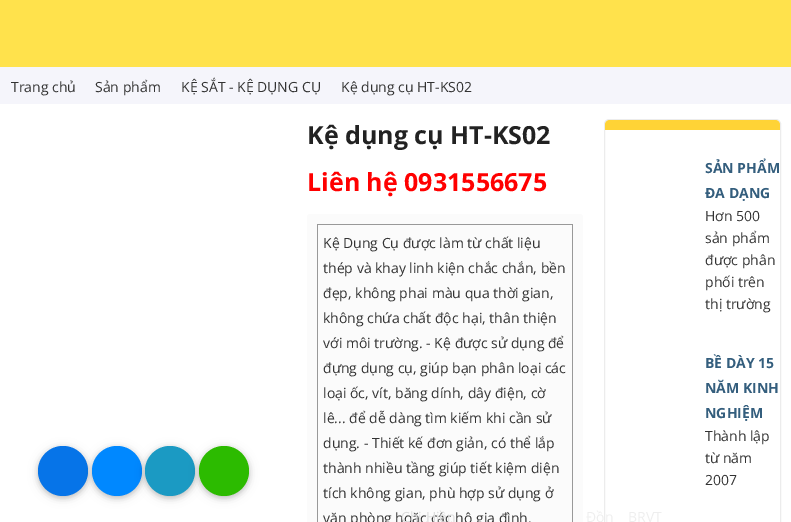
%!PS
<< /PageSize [791 522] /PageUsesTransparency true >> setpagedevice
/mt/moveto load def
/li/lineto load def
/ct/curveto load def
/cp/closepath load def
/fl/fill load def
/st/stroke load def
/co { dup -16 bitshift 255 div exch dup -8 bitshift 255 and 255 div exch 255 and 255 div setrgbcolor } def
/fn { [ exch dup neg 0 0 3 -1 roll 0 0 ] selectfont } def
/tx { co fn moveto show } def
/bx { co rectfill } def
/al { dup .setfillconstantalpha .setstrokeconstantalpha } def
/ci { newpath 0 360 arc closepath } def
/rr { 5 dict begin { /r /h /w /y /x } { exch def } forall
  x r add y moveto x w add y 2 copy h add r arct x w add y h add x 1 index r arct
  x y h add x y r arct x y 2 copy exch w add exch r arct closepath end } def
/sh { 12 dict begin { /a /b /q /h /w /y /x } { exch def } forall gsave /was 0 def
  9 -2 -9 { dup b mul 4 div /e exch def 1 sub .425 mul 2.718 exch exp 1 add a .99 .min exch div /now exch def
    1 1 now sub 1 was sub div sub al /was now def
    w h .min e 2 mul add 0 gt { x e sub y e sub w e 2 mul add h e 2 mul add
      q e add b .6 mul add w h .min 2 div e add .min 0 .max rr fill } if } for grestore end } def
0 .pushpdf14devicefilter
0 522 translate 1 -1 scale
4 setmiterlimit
0 0 791 522 16#FFFFFF bx
0 0 791 67 16#FFE24C bx
0 67 791 37 16#F5F5FB bx
16#FBFBFB co
307 214 276 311 3 rr fl
317 224 256 1 16#999999 bx
572 224 1 298 16#999999 bx
317 224 1 298 16#999999 bx
16#ECECEC co
604.5 119.5 176 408 4.5 rr st
16#FFD336 co
610 120 mt 775 120 li 778 120 780 122 780 125 ct 780 130 li 605 130 li 605 125 li 605 122 607 120 610 120 ct cp fl
16#000000 co
38 448 50 50 25 5 .12 sh
38 448 50 50 25 2.5 .16 sh
16#0674E8 co
63 471 25 ci fl
16#000000 co
92 448 50 50 25 5 .12 sh
92 448 50 50 25 2.5 .16 sh
16#0088FF co
117 471 25 ci fl
16#000000 co
145 448 50 50 25 5 .12 sh
145 448 50 50 25 2.5 .16 sh
16#1B9AC3 co
170 471 25 ci fl
16#000000 co
199 448 50 50 25 5 .12 sh
199 448 50 50 25 2.5 .16 sh
16#2CBB00 co
224 471 25 ci fl
(Trang chủ) 11 92 /OpenSans-Regular 14 16#333333 tx
(Sản phẩm) 95 92 /OpenSans-Regular 14 16#333333 tx
(KỆ SẮT - KỆ DỤNG CỤ) 181 92 /OpenSans-Regular 14 16#333333 tx
(Kệ dụng cụ HT-KS02) 341 92 /OpenSans-Regular 14 16#333333 tx
(Kệ dụng cụ HT-KS02) 307 144 /OpenSans-Bold 25 16#222222 tx
(Liên hệ 0931556675) 307 191 /OpenSans-Bold 25 16#FF0000 tx
(Kệ Dụng Cụ được làm từ chất liệu) 323 248 /OpenSans-Regular 14 16#333333 tx
(thép và khay linh kiện chắc chắn, bền) 323 273 /OpenSans-Regular 14 16#333333 tx
(đẹp, không phai màu qua thời gian,) 323 298 /OpenSans-Regular 14 16#333333 tx
(không chứa chất độc hại, thân thiện) 323 323 /OpenSans-Regular 14 16#333333 tx
(với môi trường. - Kệ được sử dụng để) 323 348 /OpenSans-Regular 14 16#333333 tx
(đựng dụng cụ, giúp bạn phân loại các) 323 373 /OpenSans-Regular 14 16#333333 tx
(loại ốc, vít, băng dính, dây điện, cờ) 323 398 /OpenSans-Regular 14 16#333333 tx
(lê... để dễ dàng tìm kiếm khi cần sử) 323 423 /OpenSans-Regular 14 16#333333 tx
(dụng. - Thiết kế đơn giản, có thể lắp) 323 448 /OpenSans-Regular 14 16#333333 tx
(thành nhiều tầng giúp tiết kiệm diện) 323 473 /OpenSans-Regular 14 16#333333 tx
(tích không gian, phù hợp sử dụng ở) 323 498 /OpenSans-Regular 14 16#333333 tx
(văn phòng hoặc các hộ gia đình.) 323 523 /OpenSans-Regular 14 16#333333 tx
(SẢN PHẨM) 705 173 /OpenSans-Bold 14 16#345E7D tx
(ĐA DẠNG) 705 198 /OpenSans-Bold 14 16#345E7D tx
(Hơn 500) 705 221 /OpenSans-Regular 14 16#333333 tx
(sản phẩm) 705 243 /OpenSans-Regular 14 16#333333 tx
(được phân) 705 265 /OpenSans-Regular 14 16#333333 tx
(phối trên) 705 287 /OpenSans-Regular 14 16#333333 tx
(thị trường) 705 309 /OpenSans-Regular 14 16#333333 tx
(BỀ DÀY 15) 705 368 /OpenSans-Bold 14 16#345E7D tx
(NĂM KINH) 705 393 /OpenSans-Bold 14 16#345E7D tx
(NGHIỆM) 705 418 /OpenSans-Bold 14 16#345E7D tx
(Thành lập) 705 441 /OpenSans-Regular 14 16#333333 tx
(từ năm) 705 463 /OpenSans-Regular 14 16#333333 tx
(2007) 705 485 /OpenSans-Regular 14 16#333333 tx
(Chị Hiền) 401 522 /OpenSans-Regular 14 16#DDDDDD tx
(Đồn) 586 522 /OpenSans-Regular 14 16#EEEEEE tx
(BRVT) 628 522 /OpenSans-Regular 14 16#EEEEEE tx
.poppdf14devicefilter showpage
